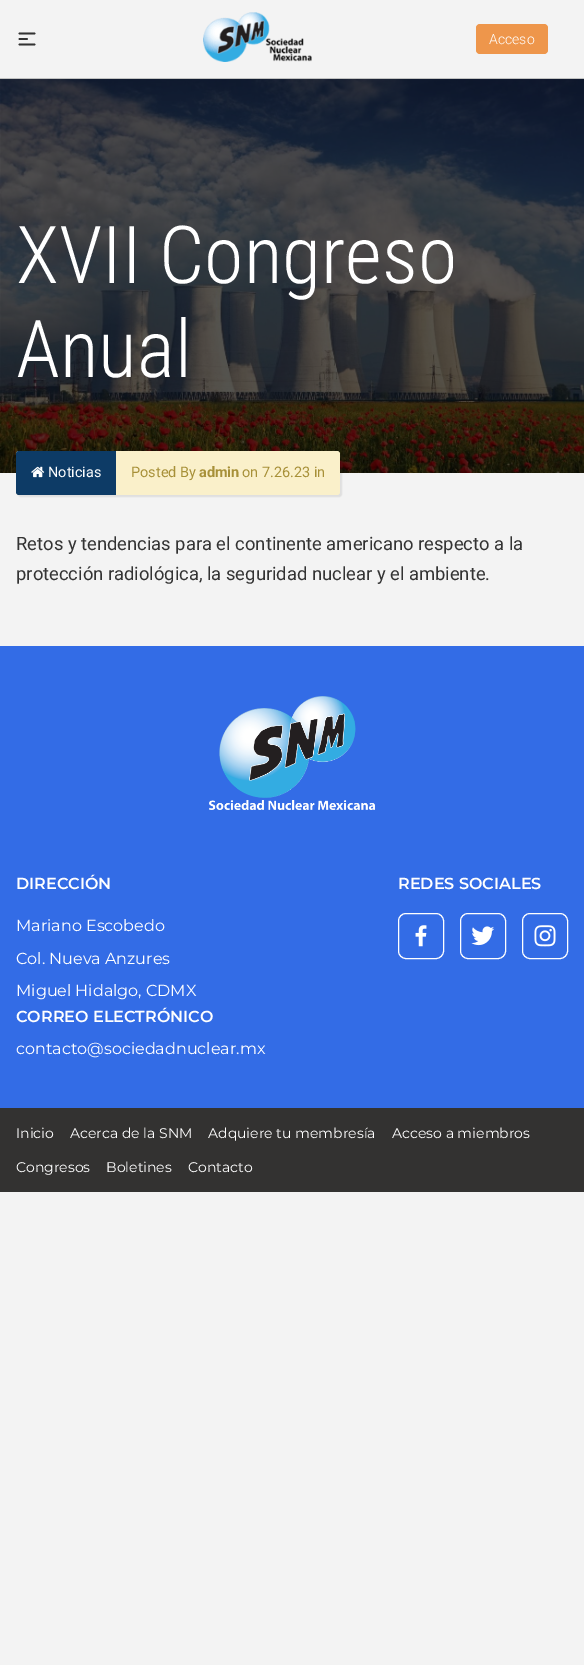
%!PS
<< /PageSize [584 1665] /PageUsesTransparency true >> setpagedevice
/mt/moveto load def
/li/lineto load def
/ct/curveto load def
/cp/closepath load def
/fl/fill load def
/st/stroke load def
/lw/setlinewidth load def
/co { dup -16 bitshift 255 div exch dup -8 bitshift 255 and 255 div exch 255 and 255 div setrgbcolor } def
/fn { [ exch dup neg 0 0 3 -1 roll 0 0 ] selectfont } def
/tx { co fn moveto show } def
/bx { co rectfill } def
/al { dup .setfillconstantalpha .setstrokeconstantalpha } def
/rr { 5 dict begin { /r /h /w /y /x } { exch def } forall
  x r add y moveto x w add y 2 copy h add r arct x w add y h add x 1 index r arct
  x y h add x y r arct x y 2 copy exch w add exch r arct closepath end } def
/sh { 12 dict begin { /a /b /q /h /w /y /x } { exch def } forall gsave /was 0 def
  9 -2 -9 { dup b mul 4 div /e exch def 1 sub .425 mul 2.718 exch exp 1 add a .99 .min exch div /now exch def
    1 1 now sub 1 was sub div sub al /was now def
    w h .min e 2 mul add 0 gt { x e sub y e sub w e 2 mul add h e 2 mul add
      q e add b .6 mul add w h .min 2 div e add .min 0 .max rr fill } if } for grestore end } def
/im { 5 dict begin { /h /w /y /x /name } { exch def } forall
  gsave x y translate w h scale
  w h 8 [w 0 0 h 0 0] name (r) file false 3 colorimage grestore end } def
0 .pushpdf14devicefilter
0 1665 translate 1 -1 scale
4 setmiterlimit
0 0 584 1665 16#F3F3F3 bx
0 78 584 1 16#C1C2C1 bx
16#333333 co
1.8 lw
1 setlinecap
1 setlinejoin
19.5 33.5 mt 34.5 33.5 li 19.5 39 mt 27 39 li 19.5 44.5 mt 34.5 44.5 li st
(media/1.raw) 203 12 109 50 im
16#EE964B co
476 24 72 30 4 rr fl
0 79 584 394 16#000000 bx
(media/2.raw) 0 79 584 394 im
18 453 324 44 3 .5 .07 sh
16#FAF0CA co
16 451 324 44 3 rr fl
16#0D3B66 co
19 451 mt 116 451 li 116 495 li 19 495 li 17.5 495 16 493.5 16 492 ct 16 454 li 16 452.5 17.5 451 19 451 ct cp fl
(media/3.raw) 31 466 14 12 im
0 646 584 462 16#336CE6 bx
(media/4.raw) 209 696 166 114 im
16#FFFFFF co
1 lw
0 setlinecap
0 setlinejoin
398.5 913.5 45 45 7.5 rr st
(media/5.raw) 415 925 12 22 im
460.5 913.5 45 45 7.5 rr st
(media/6.raw) 471 926 24 20 im
522.5 913.5 45 45 7.5 rr st
(media/7.raw) 534 925 22 22 im
0 1108 584 84 16#333231 bx
(Acceso) 489 44 /Roboto-Light 14 16#FFFFFF tx
(XVII Congreso) 16 283 /RobotoCondensed-Light 80 16#FFFFFF tx
(Anual) 16 377 /RobotoCondensed-Light 80 16#FFFFFF tx
(Noticias) 48 477 /Roboto-Regular 14.5 16#FFFFFF tx
(Posted By) 131 477 /Roboto-Regular 14.5 16#A79038 tx
(admin) 199 477 /Roboto-Bold 14.5 16#A79038 tx
(on 7.26.23 in) 242 477 /Roboto-Regular 14.5 16#A79038 tx
(Retos y tendencias para el continente americano respecto a la) 16 550 /Roboto-Regular 18.4 16#333333 tx
(protección radiológica, la seguridad nuclear y el ambiente.) 16 580 /Roboto-Regular 18.4 16#333333 tx
(DIRECCIÓN) 16 889 /Montserrat-SemiBold 16 16#FFFFFF tx
(Mariano Escobedo) 16 931 /Montserrat-Regular 16 16#FFFFFF tx
(Col. Nueva Anzures) 16 964 /Montserrat-Regular 16 16#FFFFFF tx
(Miguel Hidalgo, CDMX) 16 996 /Montserrat-Regular 16 16#FFFFFF tx
(CORREO ELECTRÓNICO) 16 1022 /Montserrat-SemiBold 16 16#FFFFFF tx
(contacto@sociedadnuclear.mx) 16 1054 /Montserrat-Regular 16 16#FFFFFF tx
(REDES SOCIALES) 398 889 /Montserrat-SemiBold 16 16#FFFFFF tx
(Inicio) 16 1138 /Montserrat-Regular 14 16#FFFFFF tx
(Acerca de la SNM) 70 1138 /Montserrat-Regular 14 16#FFFFFF tx
(Adquiere tu membresía) 208 1138 /Montserrat-Regular 14 16#FFFFFF tx
(Acceso a miembros) 392 1138 /Montserrat-Regular 14 16#FFFFFF tx
(Congresos) 16 1172 /Montserrat-Regular 14 16#FFFFFF tx
(Boletines) 106 1172 /Montserrat-Regular 14 16#FFFFFF tx
(Contacto) 188 1172 /Montserrat-Regular 14 16#FFFFFF tx
.poppdf14devicefilter showpage
